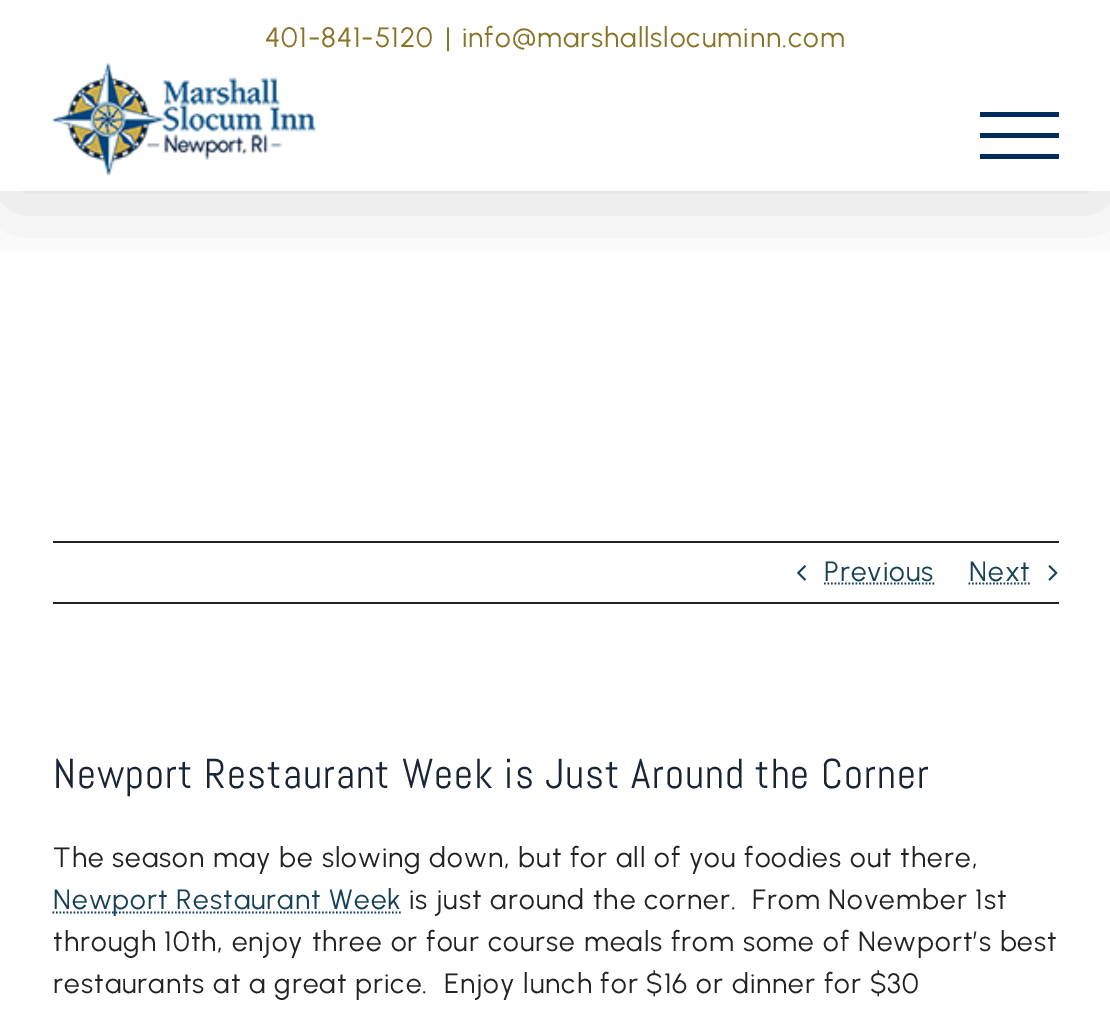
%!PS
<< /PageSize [1110 1020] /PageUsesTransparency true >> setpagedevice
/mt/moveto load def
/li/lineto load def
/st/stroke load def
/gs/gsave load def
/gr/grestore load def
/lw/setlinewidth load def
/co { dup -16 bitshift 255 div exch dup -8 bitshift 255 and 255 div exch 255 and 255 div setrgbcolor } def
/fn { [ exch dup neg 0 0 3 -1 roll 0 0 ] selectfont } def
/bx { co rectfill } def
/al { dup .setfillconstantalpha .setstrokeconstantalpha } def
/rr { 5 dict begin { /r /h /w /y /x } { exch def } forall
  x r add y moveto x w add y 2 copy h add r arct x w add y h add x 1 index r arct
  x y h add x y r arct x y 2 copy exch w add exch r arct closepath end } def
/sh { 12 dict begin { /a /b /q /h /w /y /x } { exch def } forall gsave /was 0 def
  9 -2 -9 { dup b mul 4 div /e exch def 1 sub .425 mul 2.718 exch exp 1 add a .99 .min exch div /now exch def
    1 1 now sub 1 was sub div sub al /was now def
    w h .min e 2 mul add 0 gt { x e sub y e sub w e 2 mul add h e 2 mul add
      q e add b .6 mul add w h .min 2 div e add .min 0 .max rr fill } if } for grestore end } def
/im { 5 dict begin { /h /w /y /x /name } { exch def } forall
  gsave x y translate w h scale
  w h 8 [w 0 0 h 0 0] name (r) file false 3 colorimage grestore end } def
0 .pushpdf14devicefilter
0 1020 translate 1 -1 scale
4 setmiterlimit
0 0 1110 1020 16#FFFFFF bx
gs
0 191 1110 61 rectclip
16#000000 co
4 21 1104 184 0 44 .14 sh
gr
0 190 1110 1 16#FFFFFF bx
(media/1.raw) 52 62 264 114 im
980 112 79 5 16#002C5C bx
980 133 79 5 16#002C5C bx
980 154 79 5 16#002C5C bx
53 541 1006 2 16#222222 bx
53 602 1006 2 16#222222 bx
(media/2.raw) 797 565 9 16 im
16#164057 co
1.8 lw
[1.75 1.75] 0 setdash
824 583.5 mt 934.5 583.5 li st
968.5 583.5 mt 1031 583.5 li st
(media/3.raw) 1048 565 10 16 im
52.5 912.5 mt 401.5 912.5 li st
/Urbanist-Regular 28 fn
16#897327 co
265 47 mt 1.05 0 (401-841-5120) ashow
445 47 mt 1.05 0 (|) ashow
462 47 mt 1.05 0 (info@marshallslocuminn.com) ashow
16#164057 co
824 581 mt 1.05 0 (Previous) ashow
969 581 mt 1.05 0 (Next) ashow
/Abel-Regular 41.6 fn
16#192537 co
53 788 mt 1.05 0 (Newport Restaurant Week is Just Around the Corner) ashow
/Urbanist-Regular 28 fn
16#222222 co
53 867 mt 1.05 0 (The season may be slowing down, but for all of you foodies out there,) ashow
16#164057 co
53 909 mt 1.05 0 (Newport Restaurant Week) ashow
16#222222 co
409 909 mt 1.05 0 (is just around the corner.  From November 1st) ashow
53 951 mt 1.05 0 (through 10th, enjoy three or four course meals from some of Newport’s best) ashow
53 993 mt 1.05 0 (restaurants at a great price.  Enjoy lunch for $16 or dinner for $30) ashow
.poppdf14devicefilter showpage
